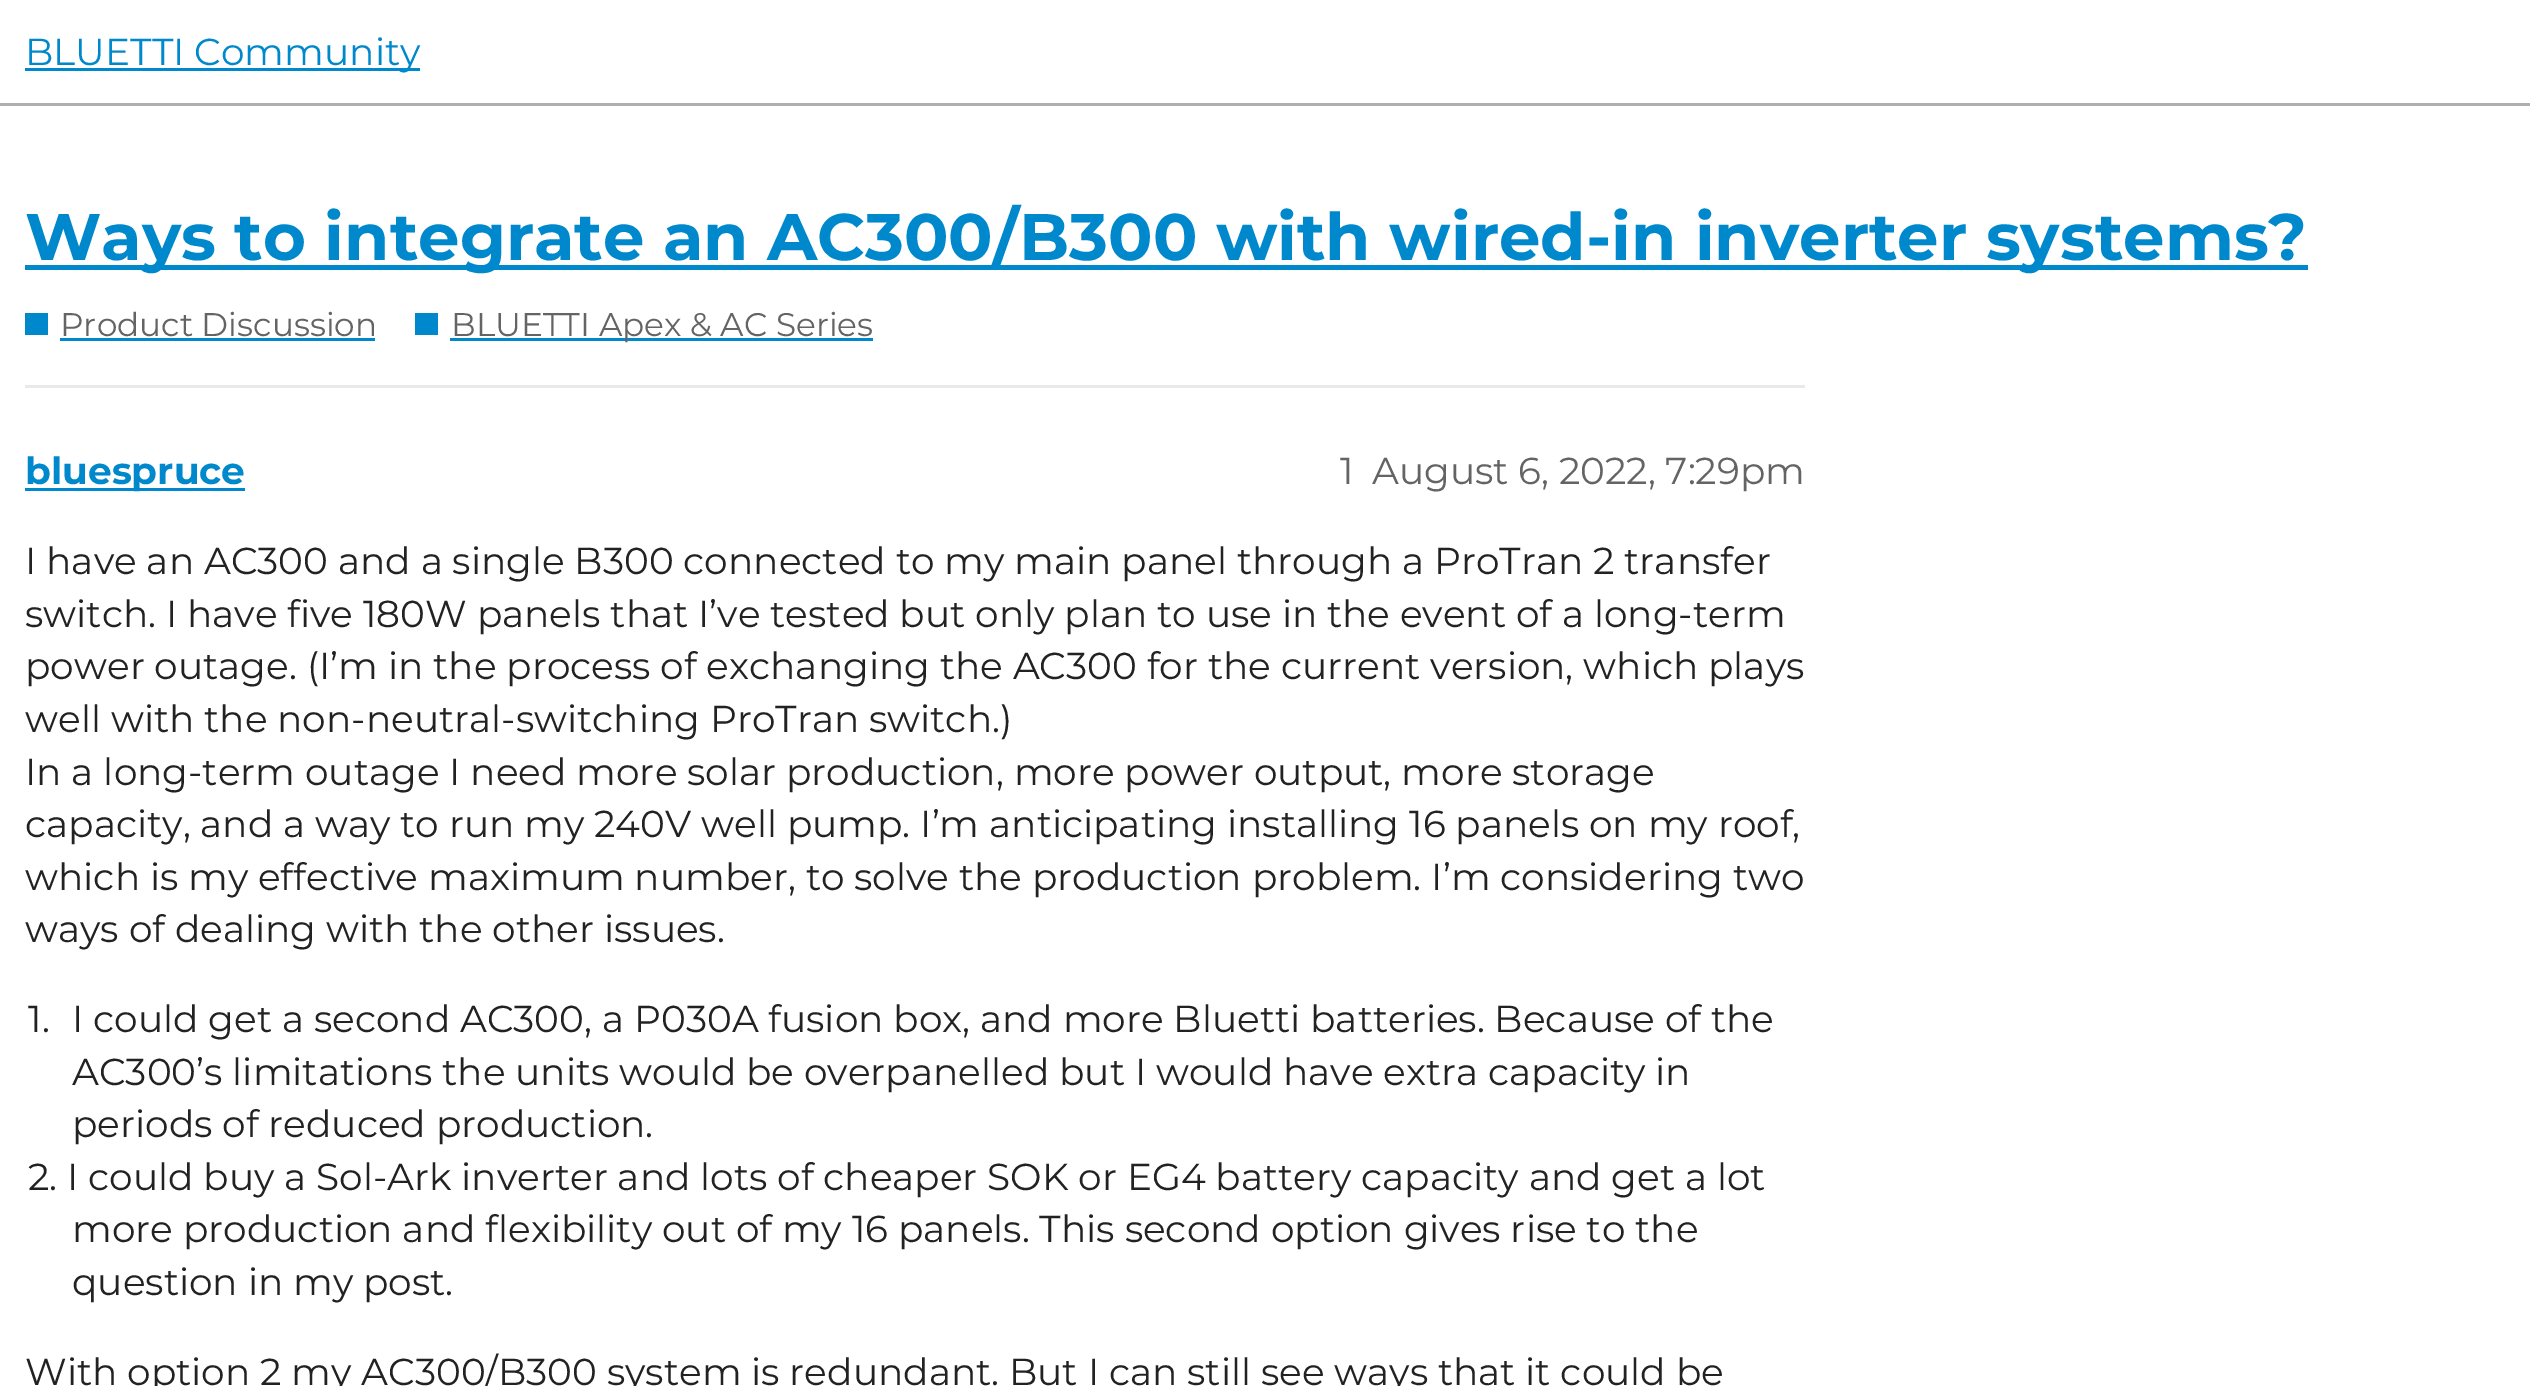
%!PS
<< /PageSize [2530 1386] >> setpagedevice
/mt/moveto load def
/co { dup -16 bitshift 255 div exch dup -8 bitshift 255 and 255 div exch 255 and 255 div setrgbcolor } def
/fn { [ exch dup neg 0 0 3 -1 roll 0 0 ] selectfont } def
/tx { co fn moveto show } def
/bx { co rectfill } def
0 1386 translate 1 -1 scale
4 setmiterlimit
0 0 2530 1386 16#FFFFFF bx
0 103 2530 3 16#AFAFAF bx
25 68 395 3 16#0088CC bx
25 265 2283 5 16#0088CC bx
25 313 23 22 16#0088CC bx
60 338 315 3 16#0088CC bx
415 313 23 22 16#0088CC bx
450 338 423 3 16#0088CC bx
25 385 1780 3 16#E9E9E9 bx
25 488 220 3 16#0088CC bx
(BLUETTI Community) 25 65 /Montserrat-Regular 37.5 16#0088CC tx
/Montserrat-Bold 65.7 fn
25 260 mt -.25 0 32 (Ways to integrate an AC300/B300 with wired-in inverter systems?) widthshow
(Product Discussion) 60 336 /Montserrat-Regular 32.7 16#646464 tx
(BLUETTI Apex & AC Series) 451 336 /Montserrat-Regular 32.7 16#646464 tx
(bluespruce) 25 484 /Montserrat-Bold 37.5 16#0088CC tx
(1) 1340 484 /Montserrat-Regular 37.5 16#646464 tx
(August 6, 2022, 7:29pm) 1372 484 /Montserrat-Regular 37.5 16#646464 tx
(I have an AC300 and a single B300 connected to my main panel through a ProTran 2 transfer) 25 574 /Montserrat-Regular 37.5 16#222222 tx
(switch. I have five 180W panels that I’ve tested but only plan to use in the event of a long-term) 25 627 /Montserrat-Regular 37.5 16#222222 tx
(power outage. \(I’m in the process of exchanging the AC300 for the current version, which plays) 25 679 /Montserrat-Regular 37.5 16#222222 tx
(well with the non-neutral-switching ProTran switch.\)) 25 732 /Montserrat-Regular 37.5 16#222222 tx
(In a long-term outage I need more solar production, more power output, more storage) 25 785 /Montserrat-Regular 37.5 16#222222 tx
(capacity, and a way to run my 240V well pump. I’m anticipating installing 16 panels on my roof,) 25 837 /Montserrat-Regular 37.5 16#222222 tx
(which is my effective maximum number, to solve the production problem. I’m considering two) 25 890 /Montserrat-Regular 37.5 16#222222 tx
(ways of dealing with the other issues.) 25 942 /Montserrat-Regular 37.5 16#222222 tx
(1.) 28 1032 /Montserrat-Regular 37.5 16#222222 tx
(I could get a second AC300, a P030A fusion box, and more Bluetti batteries. Because of the) 72 1032 /Montserrat-Regular 37.5 16#222222 tx
(AC300’s limitations the units would be overpanelled but I would have extra capacity in) 72 1085 /Montserrat-Regular 37.5 16#222222 tx
(periods of reduced production.) 72 1137 /Montserrat-Regular 37.5 16#222222 tx
(2. I could buy a Sol-Ark inverter and lots of cheaper SOK or EG4 battery capacity and get a lot) 28 1190 /Montserrat-Regular 37.5 16#222222 tx
(more production and flexibility out of my 16 panels. This second option gives rise to the) 72 1242 /Montserrat-Regular 37.5 16#222222 tx
(question in my post.) 72 1295 /Montserrat-Regular 37.5 16#222222 tx
(With option 2 my AC300/B300 system is redundant. But I can still see ways that it could be) 25 1385 /Montserrat-Regular 37.5 16#222222 tx
showpage
